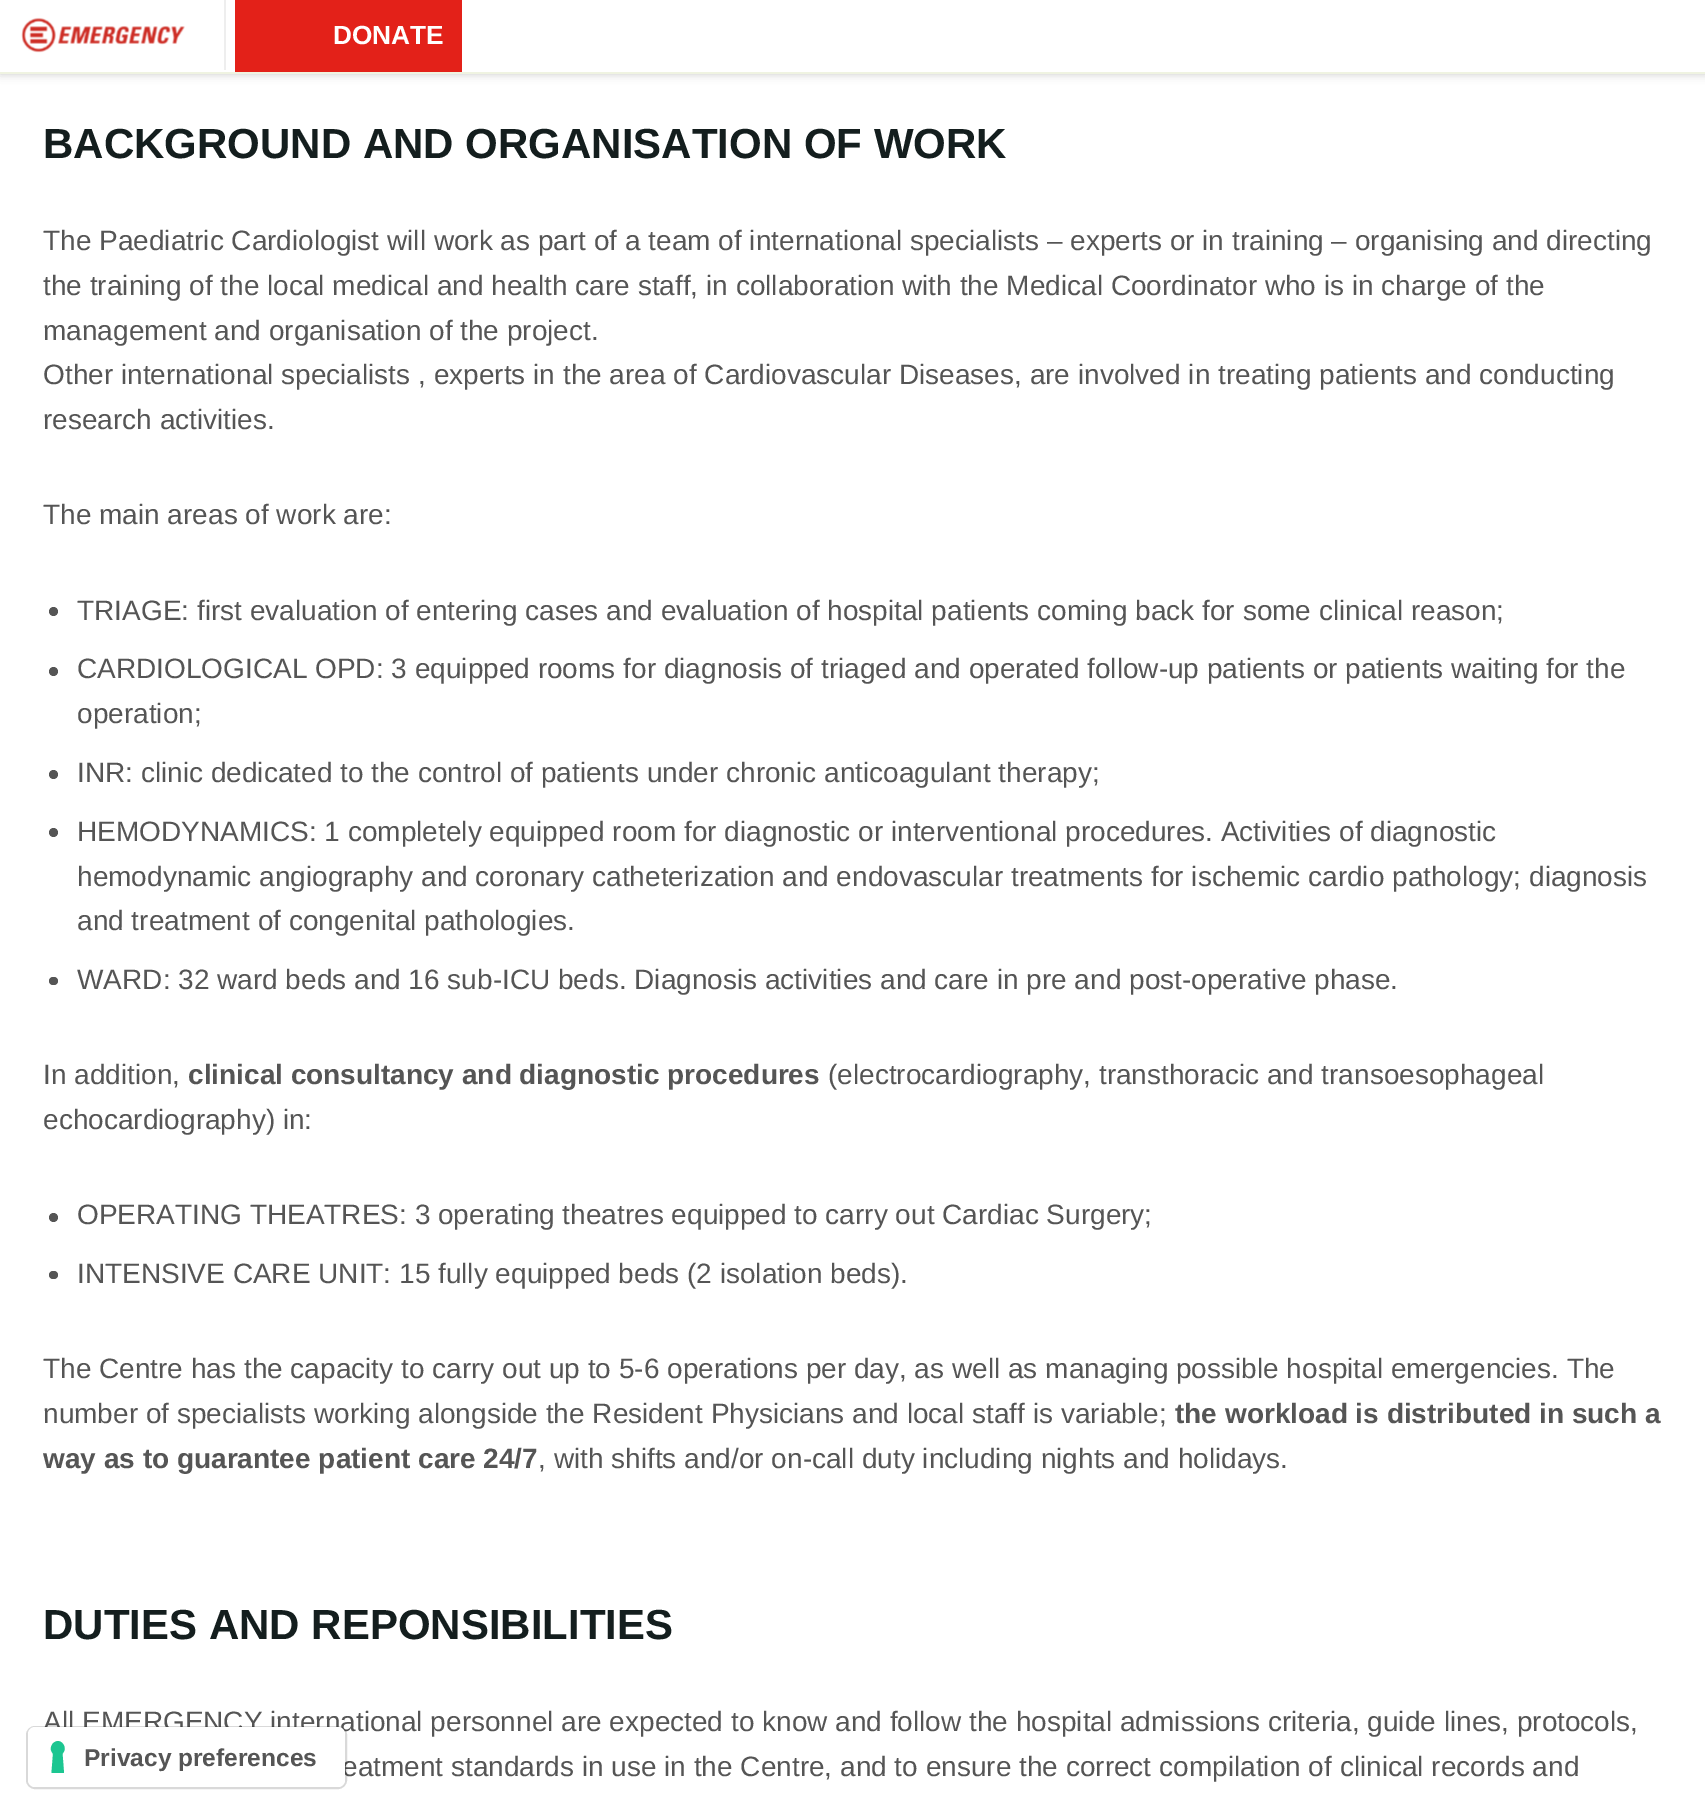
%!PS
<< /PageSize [1705 1814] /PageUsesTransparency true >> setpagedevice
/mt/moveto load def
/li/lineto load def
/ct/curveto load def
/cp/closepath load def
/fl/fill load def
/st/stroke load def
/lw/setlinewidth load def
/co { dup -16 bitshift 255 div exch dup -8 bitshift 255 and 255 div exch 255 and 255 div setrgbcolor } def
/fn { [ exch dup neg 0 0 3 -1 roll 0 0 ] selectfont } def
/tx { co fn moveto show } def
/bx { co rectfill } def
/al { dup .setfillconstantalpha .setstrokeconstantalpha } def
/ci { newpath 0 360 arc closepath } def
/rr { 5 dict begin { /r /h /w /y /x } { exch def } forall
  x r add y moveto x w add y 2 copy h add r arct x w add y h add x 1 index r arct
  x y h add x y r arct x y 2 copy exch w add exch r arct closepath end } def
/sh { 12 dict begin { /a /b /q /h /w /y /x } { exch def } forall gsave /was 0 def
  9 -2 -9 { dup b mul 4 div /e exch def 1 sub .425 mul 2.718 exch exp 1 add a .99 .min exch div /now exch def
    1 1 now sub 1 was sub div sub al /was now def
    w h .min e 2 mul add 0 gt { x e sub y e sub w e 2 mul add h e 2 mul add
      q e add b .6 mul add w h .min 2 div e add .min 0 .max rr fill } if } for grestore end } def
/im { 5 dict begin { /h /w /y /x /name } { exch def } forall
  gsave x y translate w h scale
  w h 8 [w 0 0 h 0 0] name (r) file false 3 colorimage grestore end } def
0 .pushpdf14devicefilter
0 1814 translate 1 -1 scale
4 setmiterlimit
0 0 1705 1814 16#FFFFFF bx
16#000000 co
0 0 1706 74 0 4.5 .2 sh
0 0 1705 72 16#FFFFFF bx
0 72 1705 2 16#EFF3E1 bx
224 0 2 70 16#EEEEEE bx
(media/1.raw) 21 17 164 36 im
235 0 227 72 16#E32119 bx
16#555555 co
53.5 611.5 4.5 ci fl
53.5 671.5 4.5 ci fl
53.5 774.5 4.5 ci fl
53.5 832.5 4.5 ci fl
49 977 9 8 4 rr fl
53.5 1217.5 4.5 ci fl
49 1271 9 8 4 rr fl
(DONATE) 333 44 /LiberationSans-Bold 26.25 16#FFFFFF tx
(BACKGROUND AND ORGANISATION OF WORK) 43 158 /LiberationSans-Bold 42 16#141E1E tx
(The Paediatric Cardiologist will work as part of a team of international specialists – experts or in training – organising and directing) 43 250 /LiberationSans-Regular 28 16#555555 tx
(the training of the local medical and health care staff, in collaboration with the Medical Coordinator who is in charge of the) 43 295 /LiberationSans-Regular 28 16#555555 tx
(management and organisation of the project.) 43 340 /LiberationSans-Regular 28 16#555555 tx
(Other international specialists , experts in the area of Cardiovascular Diseases, are involved in treating patients and conducting) 43 384 /LiberationSans-Regular 28 16#555555 tx
(research activities.) 43 429 /LiberationSans-Regular 28 16#555555 tx
(The main areas of work are:) 43 524 /LiberationSans-Regular 28 16#555555 tx
(TRIAGE: first evaluation of entering cases and evaluation of hospital patients coming back for some clinical reason;) 77 620 /LiberationSans-Regular 28 16#555555 tx
(CARDIOLOGICAL OPD: 3 equipped rooms for diagnosis of triaged and operated follow-up patients or patients waiting for the) 77 678 /LiberationSans-Regular 28 16#555555 tx
(operation;) 77 723 /LiberationSans-Regular 28 16#555555 tx
(INR: clinic dedicated to the control of patients under chronic anticoagulant therapy;) 77 782 /LiberationSans-Regular 28 16#555555 tx
(HEMODYNAMICS: 1 completely equipped room for diagnostic or interventional procedures. Activities of diagnostic) 77 841 /LiberationSans-Regular 28 16#555555 tx
(hemodynamic angiography and coronary catheterization and endovascular treatments for ischemic cardio pathology; diagnosis) 77 886 /LiberationSans-Regular 28 16#555555 tx
(and treatment of congenital pathologies.) 77 930 /LiberationSans-Regular 28 16#555555 tx
(WARD: 32 ward beds and 16 sub-ICU beds. Diagnosis activities and care in pre and post-operative phase.) 77 989 /LiberationSans-Regular 28 16#555555 tx
(In addition,) 43 1084 /LiberationSans-Regular 28 16#555555 tx
(clinical consultancy and diagnostic procedures) 188 1084 /LiberationSans-Bold 28 16#555555 tx
(\(electrocardiography, transthoracic and transoesophageal) 828 1084 /LiberationSans-Regular 28 16#555555 tx
(echocardiography\) in:) 43 1129 /LiberationSans-Regular 28 16#555555 tx
(OPERATING THEATRES: 3 operating theatres equipped to carry out Cardiac Surgery;) 77 1224 /LiberationSans-Regular 28 16#555555 tx
(INTENSIVE CARE UNIT: 15 fully equipped beds \(2 isolation beds\).) 77 1283 /LiberationSans-Regular 28 16#555555 tx
(The Centre has the capacity to carry out up to 5-6 operations per day, as well as managing possible hospital emergencies. The) 43 1378 /LiberationSans-Regular 28 16#555555 tx
(number of specialists working alongside the Resident Physicians and local staff is variable;) 43 1423 /LiberationSans-Regular 28 16#555555 tx
(the workload is distributed in such a) 1175 1423 /LiberationSans-Bold 28 16#555555 tx
(way as to guarantee patient care 24/7) 43 1468 /LiberationSans-Bold 28 16#555555 tx
(, with shifts and/or on-call duty including nights and holidays.) 538 1468 /LiberationSans-Regular 28 16#555555 tx
(DUTIES AND REPONSIBILITIES) 43 1639 /LiberationSans-Bold 42 16#141E1E tx
(All EMERGENCY international personnel are expected to know and follow the hospital admissions criteria, guide lines, protocols,) 43 1731 /LiberationSans-Regular 28 16#555555 tx
(eatment standards in use in the Centre, and to ensure the correct compilation of clinical records and) 342 1776 /LiberationSans-Regular 28 16#555555 tx
0.15 al
16#000000 co
2 lw
27 1727 319 61 8 rr st
1 al
16#FFFFFF co
28 1727 317 60 7 rr fl
16#1CC691 co
58 1741 mt 64 1741.5 67 1749.5 62.5 1753.5 ct 64 1773 li 51.5 1773 li 53 1753.5 li 48.5 1749.5 51.5 1741.5 58 1741 ct cp eofill
(Privacy preferences) 84 1766 /LiberationSans-Bold 24.5 16#555555 tx
.poppdf14devicefilter showpage
